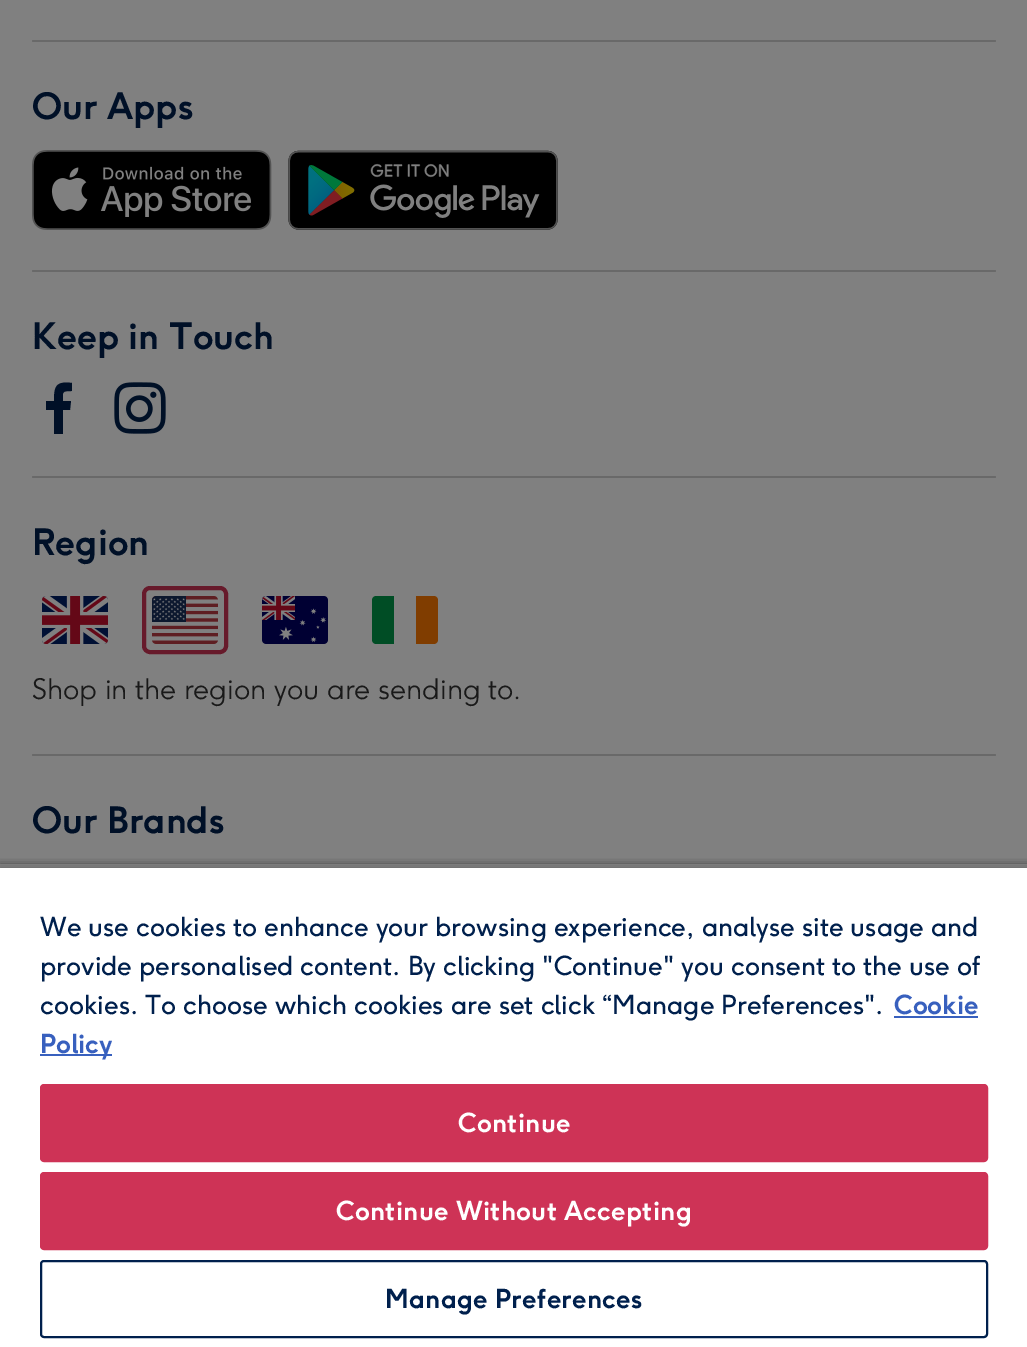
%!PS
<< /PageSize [1027 1347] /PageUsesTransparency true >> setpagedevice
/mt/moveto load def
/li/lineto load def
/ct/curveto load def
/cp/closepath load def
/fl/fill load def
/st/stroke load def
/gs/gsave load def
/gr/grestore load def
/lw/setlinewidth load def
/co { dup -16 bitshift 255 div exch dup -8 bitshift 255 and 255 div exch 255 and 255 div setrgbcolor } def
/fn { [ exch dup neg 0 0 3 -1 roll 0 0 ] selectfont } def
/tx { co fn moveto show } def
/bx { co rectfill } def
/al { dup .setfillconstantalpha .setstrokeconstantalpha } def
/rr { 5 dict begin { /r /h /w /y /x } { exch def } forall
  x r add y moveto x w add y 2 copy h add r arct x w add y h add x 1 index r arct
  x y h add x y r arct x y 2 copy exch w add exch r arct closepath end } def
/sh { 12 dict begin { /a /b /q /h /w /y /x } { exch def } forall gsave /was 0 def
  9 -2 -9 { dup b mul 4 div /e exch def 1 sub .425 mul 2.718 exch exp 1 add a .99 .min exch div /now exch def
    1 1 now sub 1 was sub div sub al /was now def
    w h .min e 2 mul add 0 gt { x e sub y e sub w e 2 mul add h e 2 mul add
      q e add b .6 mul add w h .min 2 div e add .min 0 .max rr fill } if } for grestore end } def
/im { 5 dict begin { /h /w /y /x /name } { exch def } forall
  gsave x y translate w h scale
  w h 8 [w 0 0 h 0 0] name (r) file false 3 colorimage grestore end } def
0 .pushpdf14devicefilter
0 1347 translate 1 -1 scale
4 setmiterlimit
0 0 1027 1347 16#808080 bx
16#696969 co
32 40 964 2 1 rr fl
(media/1.raw) 32 150 240 80 im
(media/2.raw) 288 150 270 80 im
32 270 964 2 1 rr fl
16#001027 co
63 434 mt 63 410 li 70 410 li 71 401 li 63 401 li 63 392 61 391 72 391 ct 72 383 li 56 381 54 386 54 401 ct 46 401 li 46 410 li 54 410 li 54 434 li cp fl
(media/3.raw) 114 382 52 52 im
16#696969 co
32 476 964 2 1 rr fl
(media/4.raw) 42 596 66 48 im
16#671A2B co
4 lw
144 588 82 64 6 rr st
(media/5.raw) 152 596 66 48 im
(media/6.raw) 262 596 66 48 im
16#004D25 co
372 600 mt 372 640 li 372 642 374 644 376 644 ct 394 644 li 394 596 li 376 596 li 374 596 372 598 372 600 ct cp fl
16#803D00 co
416 596 mt 416 644 li 434 644 li 436 644 438 642 438 640 ct 438 600 li 438 598 436 596 434 596 ct cp fl
16#696969 co
32 754 964 2 1 rr fl
gs
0 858 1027 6 rectclip
16#000000 co
0 864 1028 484 0 4 .35 sh
gr
16#000000 co
0 868 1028 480 0 4 .2 sh
0 868 1027 479 16#FFFFFF bx
894 1016 84 2 16#3860BE bx
40 1054 72 2 16#3860BE bx
16#CE3356 co
41 1085 946 76 3 rr gs fl gr
2 lw
st
41 1173 946 76 3 rr gs fl gr
st
16#00204D co
41 1261 946 76 3 rr st
(Our Apps) 32 119 /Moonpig-Bold 36 16#001027 tx
(Keep in Touch) 32 349 /Moonpig-Bold 36 16#001027 tx
(Region) 32 555 /Moonpig-Bold 36 16#001027 tx
(Shop in the region you are sending to.) 32 699 /Moonpig-Light 28 16#191919 tx
(Our Brands) 32 833 /Moonpig-Bold 36 16#001027 tx
(We use cookies to enhance your browsing experience, analyse site usage and) 40 936 /Moonpig-Regular 26 16#00204D tx
(provide personalised content. By clicking "Continue" you consent to the use of) 40 975 /Moonpig-Regular 26 16#00204D tx
(cookies. To choose which cookies are set click “Manage Preferences".) 40 1014 /Moonpig-Regular 26 16#00204D tx
(Cookie) 894 1014 /Moonpig-Bold 26 16#3860BE tx
(Policy) 40 1053 /Moonpig-Bold 26 16#3860BE tx
16#FFFFFF co
458 1132 mt .25 0 (Continue) ashow
336 1220 mt .25 0 (Continue Without Accepting) ashow
16#00204D co
385 1308 mt .25 0 (Manage Preferences) ashow
.poppdf14devicefilter showpage
